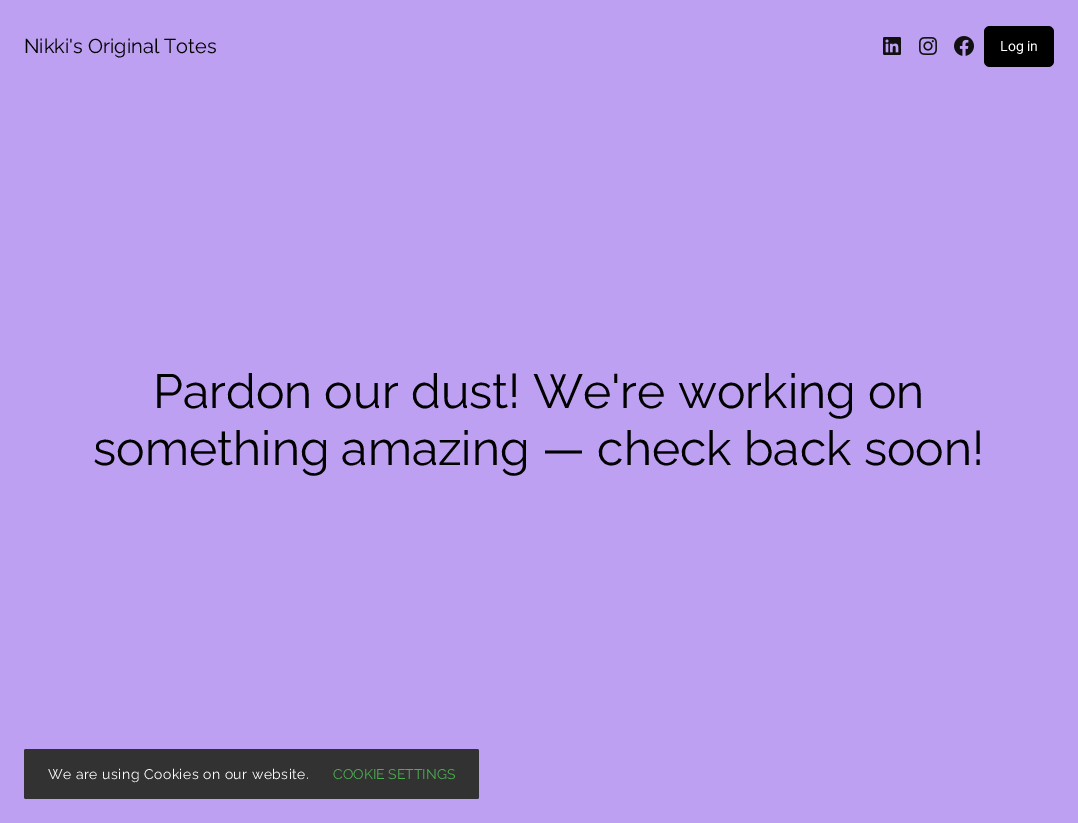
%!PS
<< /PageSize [1078 823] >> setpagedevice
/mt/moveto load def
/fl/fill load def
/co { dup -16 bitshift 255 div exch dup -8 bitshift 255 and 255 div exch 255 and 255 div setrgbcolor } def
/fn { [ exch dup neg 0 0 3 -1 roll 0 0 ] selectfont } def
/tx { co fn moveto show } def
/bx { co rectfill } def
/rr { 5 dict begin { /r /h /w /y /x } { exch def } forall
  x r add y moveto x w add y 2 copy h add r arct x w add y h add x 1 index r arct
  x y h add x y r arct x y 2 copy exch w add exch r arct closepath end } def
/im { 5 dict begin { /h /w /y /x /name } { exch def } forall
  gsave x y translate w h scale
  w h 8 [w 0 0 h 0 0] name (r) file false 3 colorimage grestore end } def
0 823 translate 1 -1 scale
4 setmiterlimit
0 0 1078 823 16#BEA0F2 bx
(media/1.raw) 883 37 18 18 im
(media/2.raw) 919 37 18 18 im
(media/3.raw) 954 36 20 20 im
16#000000 co
984 26 70 41 6 rr fl
16#323232 co
24 749 455 50 2 rr fl
(Nikki's Original Totes) 24 53 /Raleway-Regular 20 16#000000 tx
(Log in) 1000 51 /Roboto-Regular 14 16#FFFFFF tx
(Pardon our dust! We're working on) 153 408 /Raleway-Regular 48 16#000000 tx
(something amazing — check back soon!) 93 465 /Raleway-Regular 48 16#000000 tx
/Raleway-Regular 14 fn
16#FFFFFF co
48 779 mt .5 0 (We are using Cookies on our website.) ashow
(COOKIE SETTINGS) 333 779 /Raleway-Regular 14 16#4CAF50 tx
showpage
